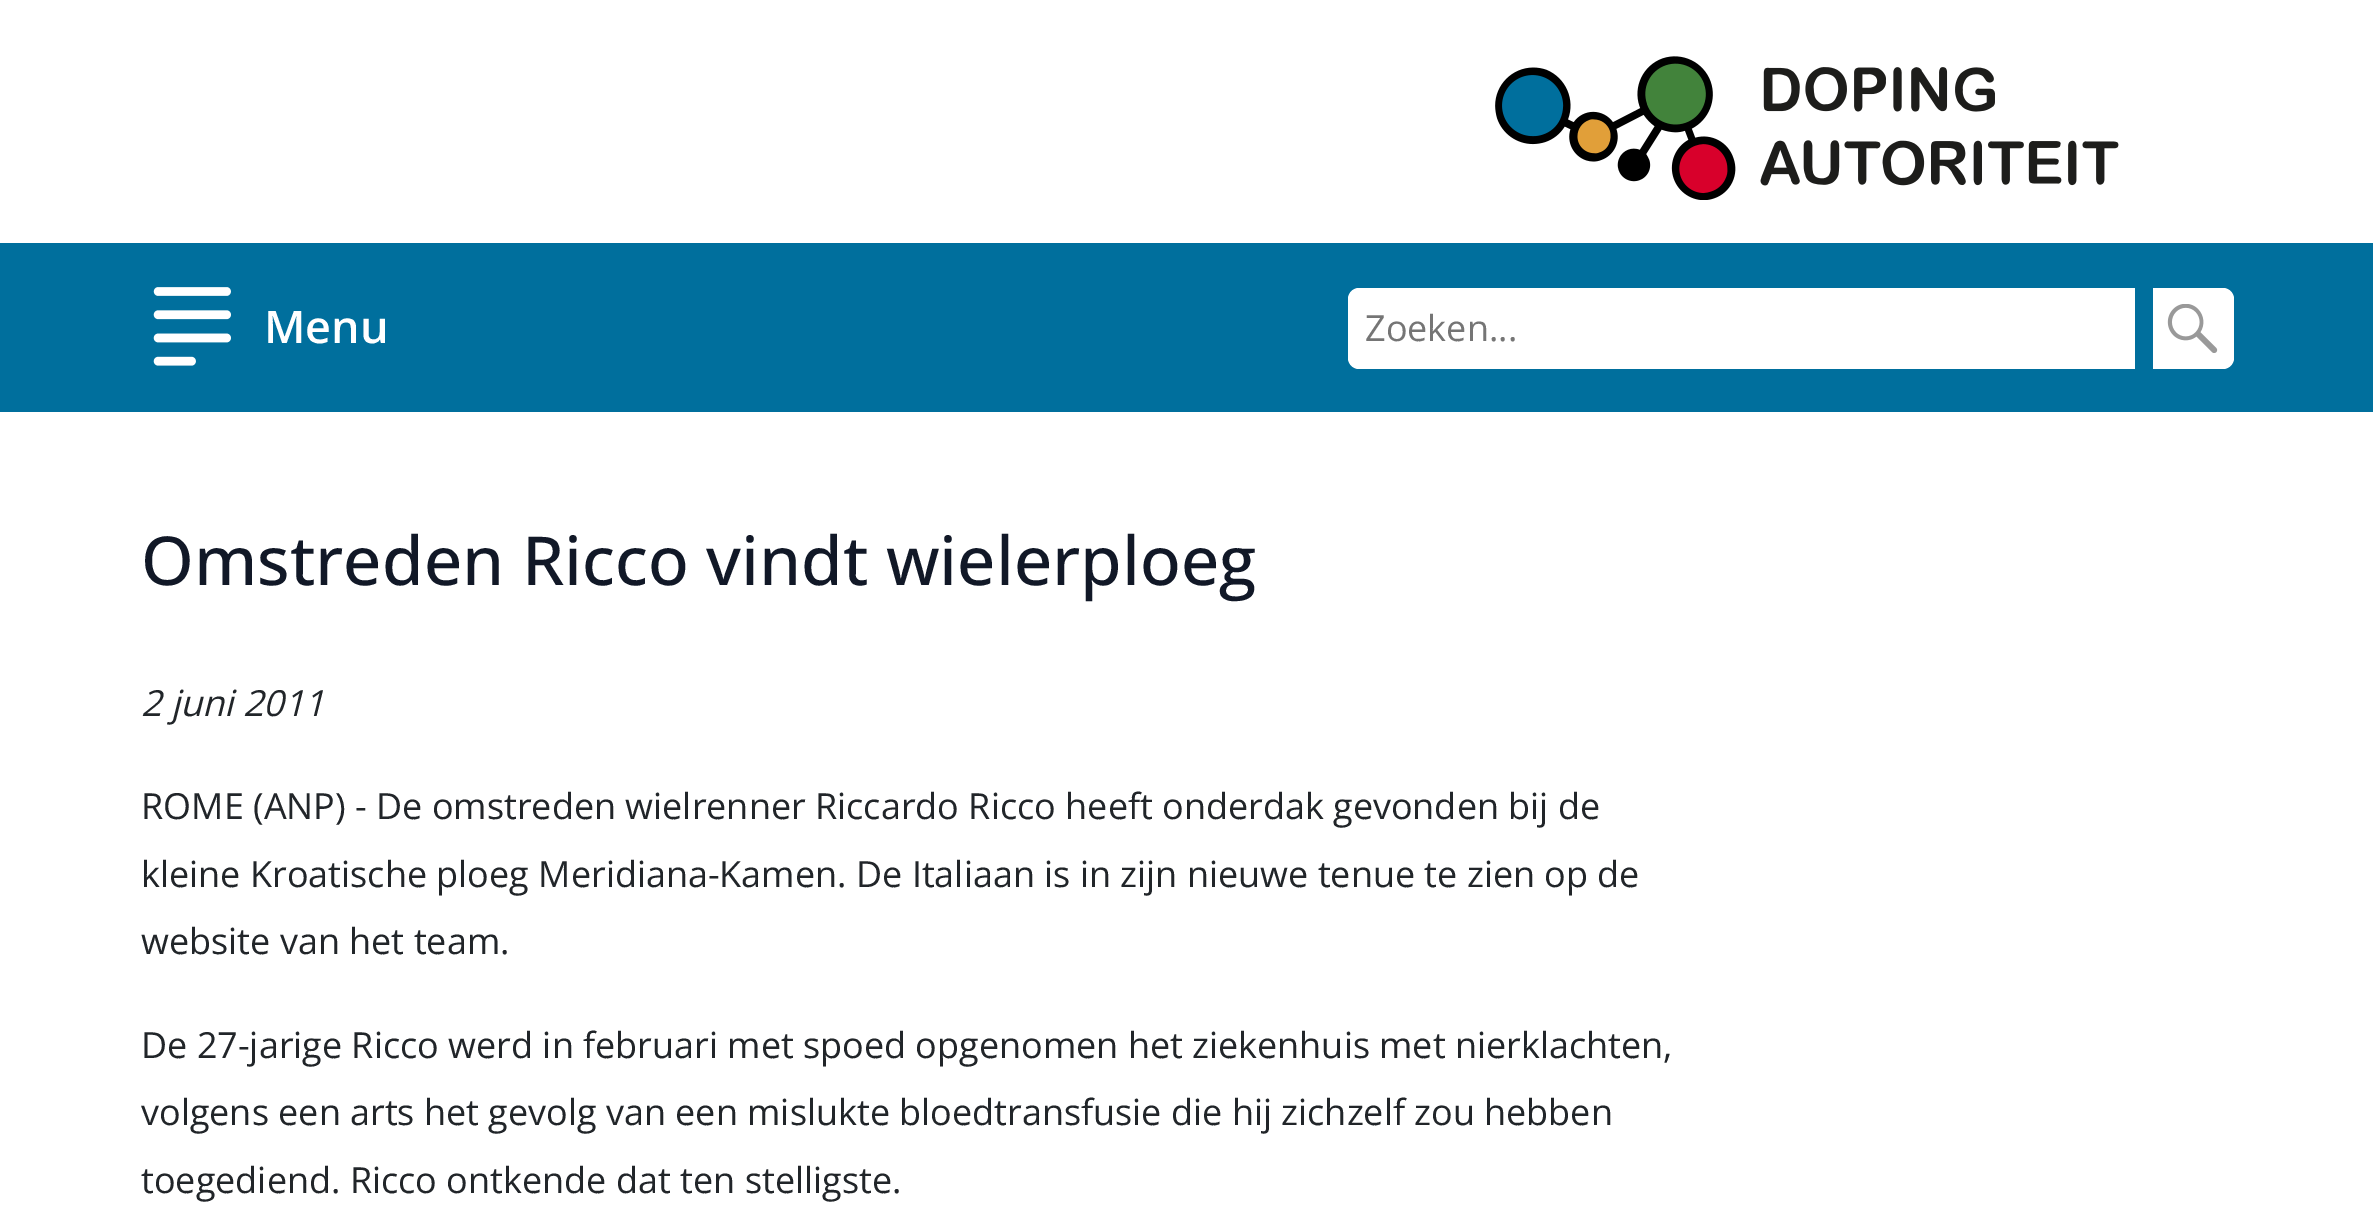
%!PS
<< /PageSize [2373 1224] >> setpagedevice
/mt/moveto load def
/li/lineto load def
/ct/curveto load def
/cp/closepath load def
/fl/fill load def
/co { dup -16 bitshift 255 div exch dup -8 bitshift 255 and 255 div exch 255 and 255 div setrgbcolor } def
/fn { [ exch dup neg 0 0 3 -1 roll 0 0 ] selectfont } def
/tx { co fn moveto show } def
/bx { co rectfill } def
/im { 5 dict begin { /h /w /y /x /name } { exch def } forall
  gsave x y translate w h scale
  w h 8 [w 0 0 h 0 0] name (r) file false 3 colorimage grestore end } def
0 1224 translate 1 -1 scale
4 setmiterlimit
0 0 2373 1224 16#FFFFFF bx
(media/1.raw) 1495 56 624 144 im
0 243 2373 169 16#006F9D bx
(media/2.raw) 153 287 78 79 im
16#FFFFFF co
1359 288 mt 2135 288 li 2135 369 li 1359 369 li 1353 369 1348 364 1348 358 ct 1348 299 li 1348 293 1353 288 1359 288 ct cp fl
2153 288 mt 2223 288 li 2229 288 2234 293 2234 299 ct 2234 358 li 2234 364 2229 369 2223 369 ct 2153 369 li cp fl
(media/3.raw) 2167 304 51 49 im
(Menu) 264 343 /OpenSans-SemiBold 45 16#FFFFFF tx
(Zoeken...) 1365 341 /OpenSans-Regular 36 16#757575 tx
(Omstreden Ricco vindt wielerploeg) 141 585 /OpenSans-Medium 67.5 16#111827 tx
(2 juni 2011) 141 716 /OpenSans-Italic 36 16#212529 tx
(ROME \(ANP\) - De omstreden wielrenner Riccardo Ricco heeft onderdak gevonden bij de) 141 819 /OpenSans-Regular 36 16#212529 tx
(kleine Kroatische ploeg Meridiana-Kamen. De Italiaan is in zijn nieuwe tenue te zien op de) 141 887 /OpenSans-Regular 36 16#212529 tx
(website van het team.) 141 954 /OpenSans-Regular 36 16#212529 tx
(De 27-jarige Ricco werd in februari met spoed opgenomen het ziekenhuis met nierklachten,) 141 1058 /OpenSans-Regular 36 16#212529 tx
(volgens een arts het gevolg van een mislukte bloedtransfusie die hij zichzelf zou hebben) 141 1125 /OpenSans-Regular 36 16#212529 tx
(toegediend. Ricco ontkende dat ten stelligste.) 141 1193 /OpenSans-Regular 36 16#212529 tx
showpage
